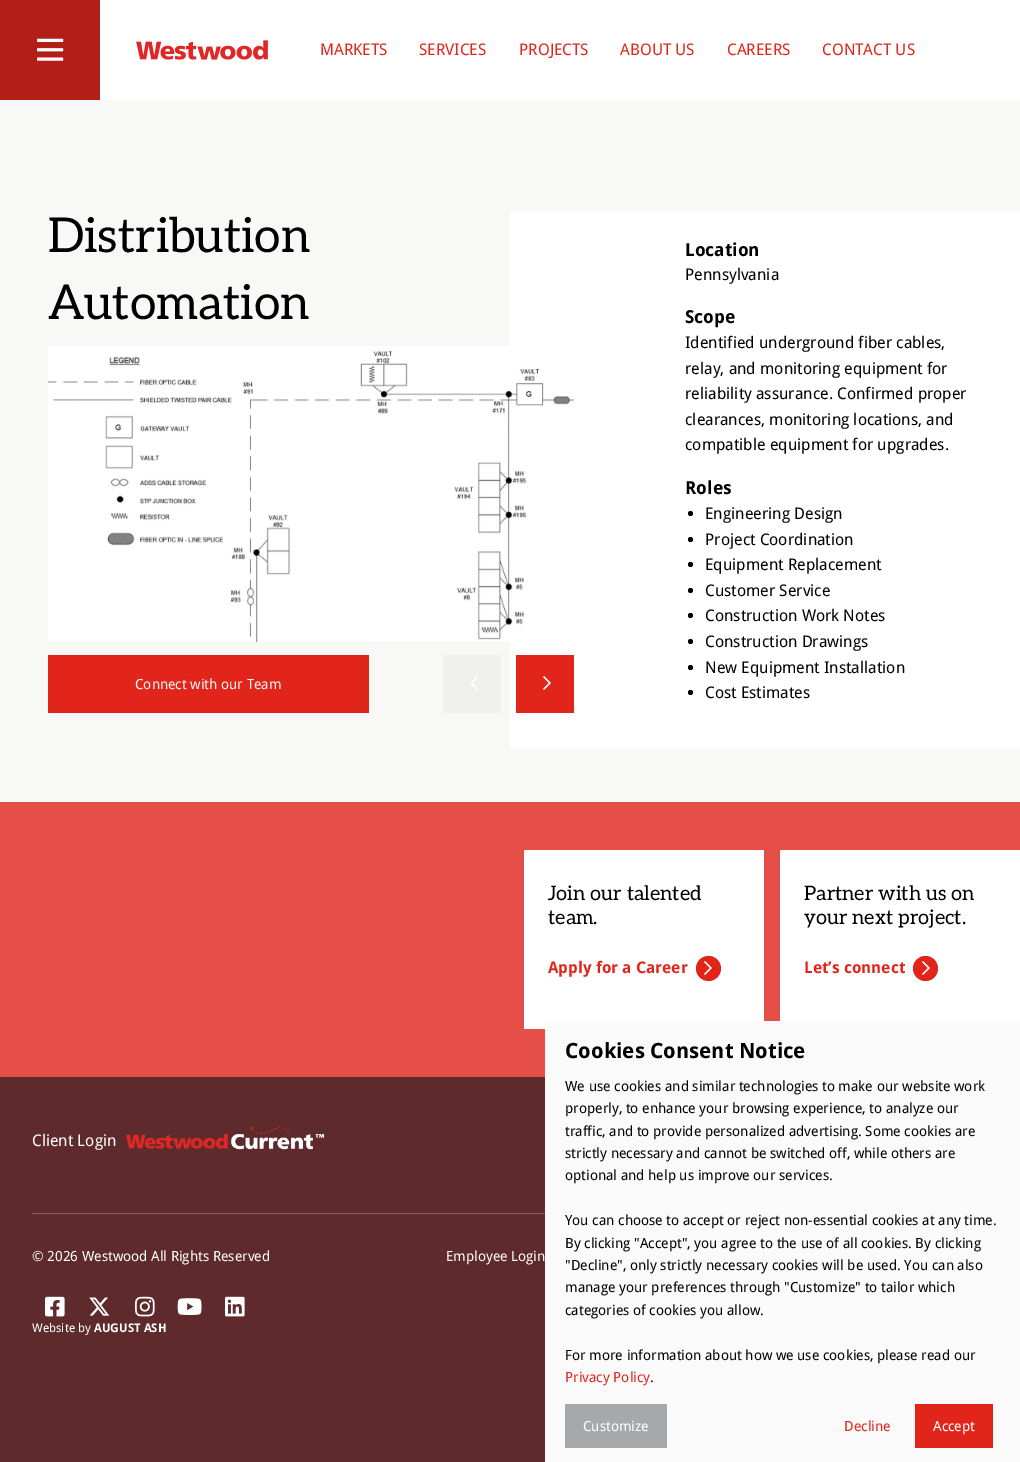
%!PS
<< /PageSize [1020 1462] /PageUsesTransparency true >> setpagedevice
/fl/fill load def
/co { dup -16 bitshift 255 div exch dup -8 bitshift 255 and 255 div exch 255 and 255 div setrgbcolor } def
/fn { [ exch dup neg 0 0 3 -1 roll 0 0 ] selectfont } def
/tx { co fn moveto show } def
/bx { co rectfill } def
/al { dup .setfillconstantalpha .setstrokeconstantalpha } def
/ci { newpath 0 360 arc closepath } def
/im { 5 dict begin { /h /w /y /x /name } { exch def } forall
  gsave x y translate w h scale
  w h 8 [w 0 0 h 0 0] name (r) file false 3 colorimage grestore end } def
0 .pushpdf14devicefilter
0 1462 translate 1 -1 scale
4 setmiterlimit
0 0 1020 1462 16#5E2A2B bx
100 0 920 100 16#FFFFFF bx
0 0 100 100 16#B31E16 bx
(media/1.raw) 37 38 27 23 im
(media/2.raw) 136 40 132 20 im
0 100 1020 702 16#F8F8F6 bx
510 212 510 536 16#FFFFFF bx
(media/3.raw) 48 346 526 296 im
443 655 58 58 16#EFEFEE bx
(media/4.raw) 470 676 8 14 im
516 655 58 58 16#E1251B bx
(media/5.raw) 543 676 8 14 im
48 655 321 58 16#E1251B bx
16#000000 co
690.5 513.5 2.5 ci fl
690.5 539.5 2.5 ci fl
690.5 564.5 2.5 ci fl
690.5 590.5 2.5 ci fl
690.5 615.5 2.5 ci fl
690.5 641.5 2.5 ci fl
690.5 667.5 2.5 ci fl
690.5 692.5 2.5 ci fl
0 802 1020 275 16#E64F47 bx
524 850 240 179 16#FFFFFF bx
16#E1251B co
708.5 968.5 12.5 ci fl
(media/5.raw) 704 961 8 14 im
780 850 240 171 16#FFFFFF bx
16#E1251B co
925.5 968.5 12.5 ci fl
(media/5.raw) 922 961 8 14 im
(media/6.raw) 126 1126 198 24 im
0.25 al
32 1213 513 1 16#FFFFFF bx
1 al
(media/7.raw) 45 1296 20 21 im
(media/8.raw) 89 1297 21 19 im
(media/9.raw) 135 1296 20 21 im
(media/10.raw) 177 1298 25 17 im
(media/11.raw) 225 1296 20 21 im
545 1021 475 441 16#FAFAFA bx
565 1404 102 44 16#A7A8A9 bx
915 1404 78 44 16#E1251B bx
(MARKETS) 320 55 /DroidSans-Regular 16 16#E1251B tx
(SERVICES) 419 55 /DroidSans-Regular 16 16#E1251B tx
(PROJECTS) 519 55 /DroidSans-Regular 16 16#E1251B tx
(ABOUT US) 620 55 /DroidSans-Regular 16 16#E1251B tx
(CAREERS) 727 55 /DroidSans-Regular 16 16#E1251B tx
(CONTACT US) 822 55 /DroidSans-Regular 16 16#E1251B tx
(Distribution) 48 252 /Aleo-Regular 48 16#000000 tx
(Automation) 48 319 /Aleo-Regular 48 16#000000 tx
(Connect with our Team) 135 689 /DroidSans-Regular 14 16#F8F8F6 tx
(Location) 685 256 /DroidSans-Bold 18 16#000000 tx
(Pennsylvania) 685 280 /DroidSans-Regular 16 16#000000 tx
(Scope) 685 323 /DroidSans-Bold 18 16#000000 tx
(Identified underground fiber cables,) 685 348 /DroidSans-Regular 16 16#000000 tx
(relay, and monitoring equipment for) 685 374 /DroidSans-Regular 16 16#000000 tx
(reliability assurance. Confirmed proper) 685 399 /DroidSans-Regular 16 16#000000 tx
(clearances, monitoring locations, and) 685 425 /DroidSans-Regular 16 16#000000 tx
(compatible equipment for upgrades.) 685 450 /DroidSans-Regular 16 16#000000 tx
(Roles) 685 494 /DroidSans-Bold 18 16#000000 tx
(Engineering Design) 705 519 /DroidSans-Regular 16 16#000000 tx
(Project Coordination) 705 545 /DroidSans-Regular 16 16#000000 tx
(Equipment Replacement) 705 570 /DroidSans-Regular 16 16#000000 tx
(Customer Service) 705 596 /DroidSans-Regular 16 16#000000 tx
(Construction Work Notes) 705 621 /DroidSans-Regular 16 16#000000 tx
(Construction Drawings) 705 647 /DroidSans-Regular 16 16#000000 tx
(New Equipment Installation) 705 673 /DroidSans-Regular 16 16#000000 tx
(Cost Estimates) 705 698 /DroidSans-Regular 16 16#000000 tx
(Join our talented) 548 900 /Aleo-Regular 20 16#000000 tx
(team.) 548 924 /Aleo-Regular 20 16#000000 tx
(Apply for a Career) 548 973 /DroidSans-Bold 16 16#E1251B tx
(Partner with us on) 804 900 /Aleo-Regular 20 16#000000 tx
(your next project.) 804 924 /Aleo-Regular 20 16#000000 tx
(Let’s connect) 804 973 /DroidSans-Bold 16 16#E1251B tx
(Client Login) 32 1146 /DroidSans-Regular 16 16#FFFFFF tx
(© 2026 Westwood All Rights Reserved) 32 1261 /DroidSans-Regular 14 16#FFFFFF tx
(Employee Login) 446 1261 /DroidSans-Regular 14 16#FFFFFF tx
(Website by) 32 1332 /DroidSans-Regular 12 16#FFFFFF tx
(AUGUST ASH) 94 1332 /DroidSans-Bold 12 16#FFFFFF tx
(Cookies Consent Notice) 565 1058 /DroidSans-Bold 21 16#000000 tx
(We use cookies and similar technologies to make our website work) 565 1091 /DroidSans-Regular 14 16#000000 tx
(properly, to enhance your browsing experience, to analyze our) 565 1113 /DroidSans-Regular 14 16#000000 tx
(traffic, and to provide personalized advertising. Some cookies are) 565 1136 /DroidSans-Regular 14 16#000000 tx
(strictly necessary and cannot be switched off, while others are) 565 1158 /DroidSans-Regular 14 16#000000 tx
(optional and help us improve our services.) 565 1180 /DroidSans-Regular 14 16#000000 tx
(You can choose to accept or reject non-essential cookies at any time.) 565 1225 /DroidSans-Regular 14 16#000000 tx
(By clicking "Accept", you agree to the use of all cookies. By clicking) 565 1248 /DroidSans-Regular 14 16#000000 tx
("Decline", only strictly necessary cookies will be used. You can also) 565 1270 /DroidSans-Regular 14 16#000000 tx
(manage your preferences through "Customize" to tailor which) 565 1292 /DroidSans-Regular 14 16#000000 tx
(categories of cookies you allow.) 565 1315 /DroidSans-Regular 14 16#000000 tx
(For more information about how we use cookies, please read our) 565 1360 /DroidSans-Regular 14 16#000000 tx
(Privacy Policy) 565 1382 /DroidSans-Regular 14 16#E1251B tx
(.) 650 1382 /DroidSans-Regular 14 16#000000 tx
(Customize) 583 1431 /DroidSans-Regular 14 16#FFFFFF tx
(Decline) 844 1431 /DroidSans-Regular 14 16#E1251B tx
(Accept) 933 1431 /DroidSans-Regular 14 16#FFFFFF tx
.poppdf14devicefilter showpage
